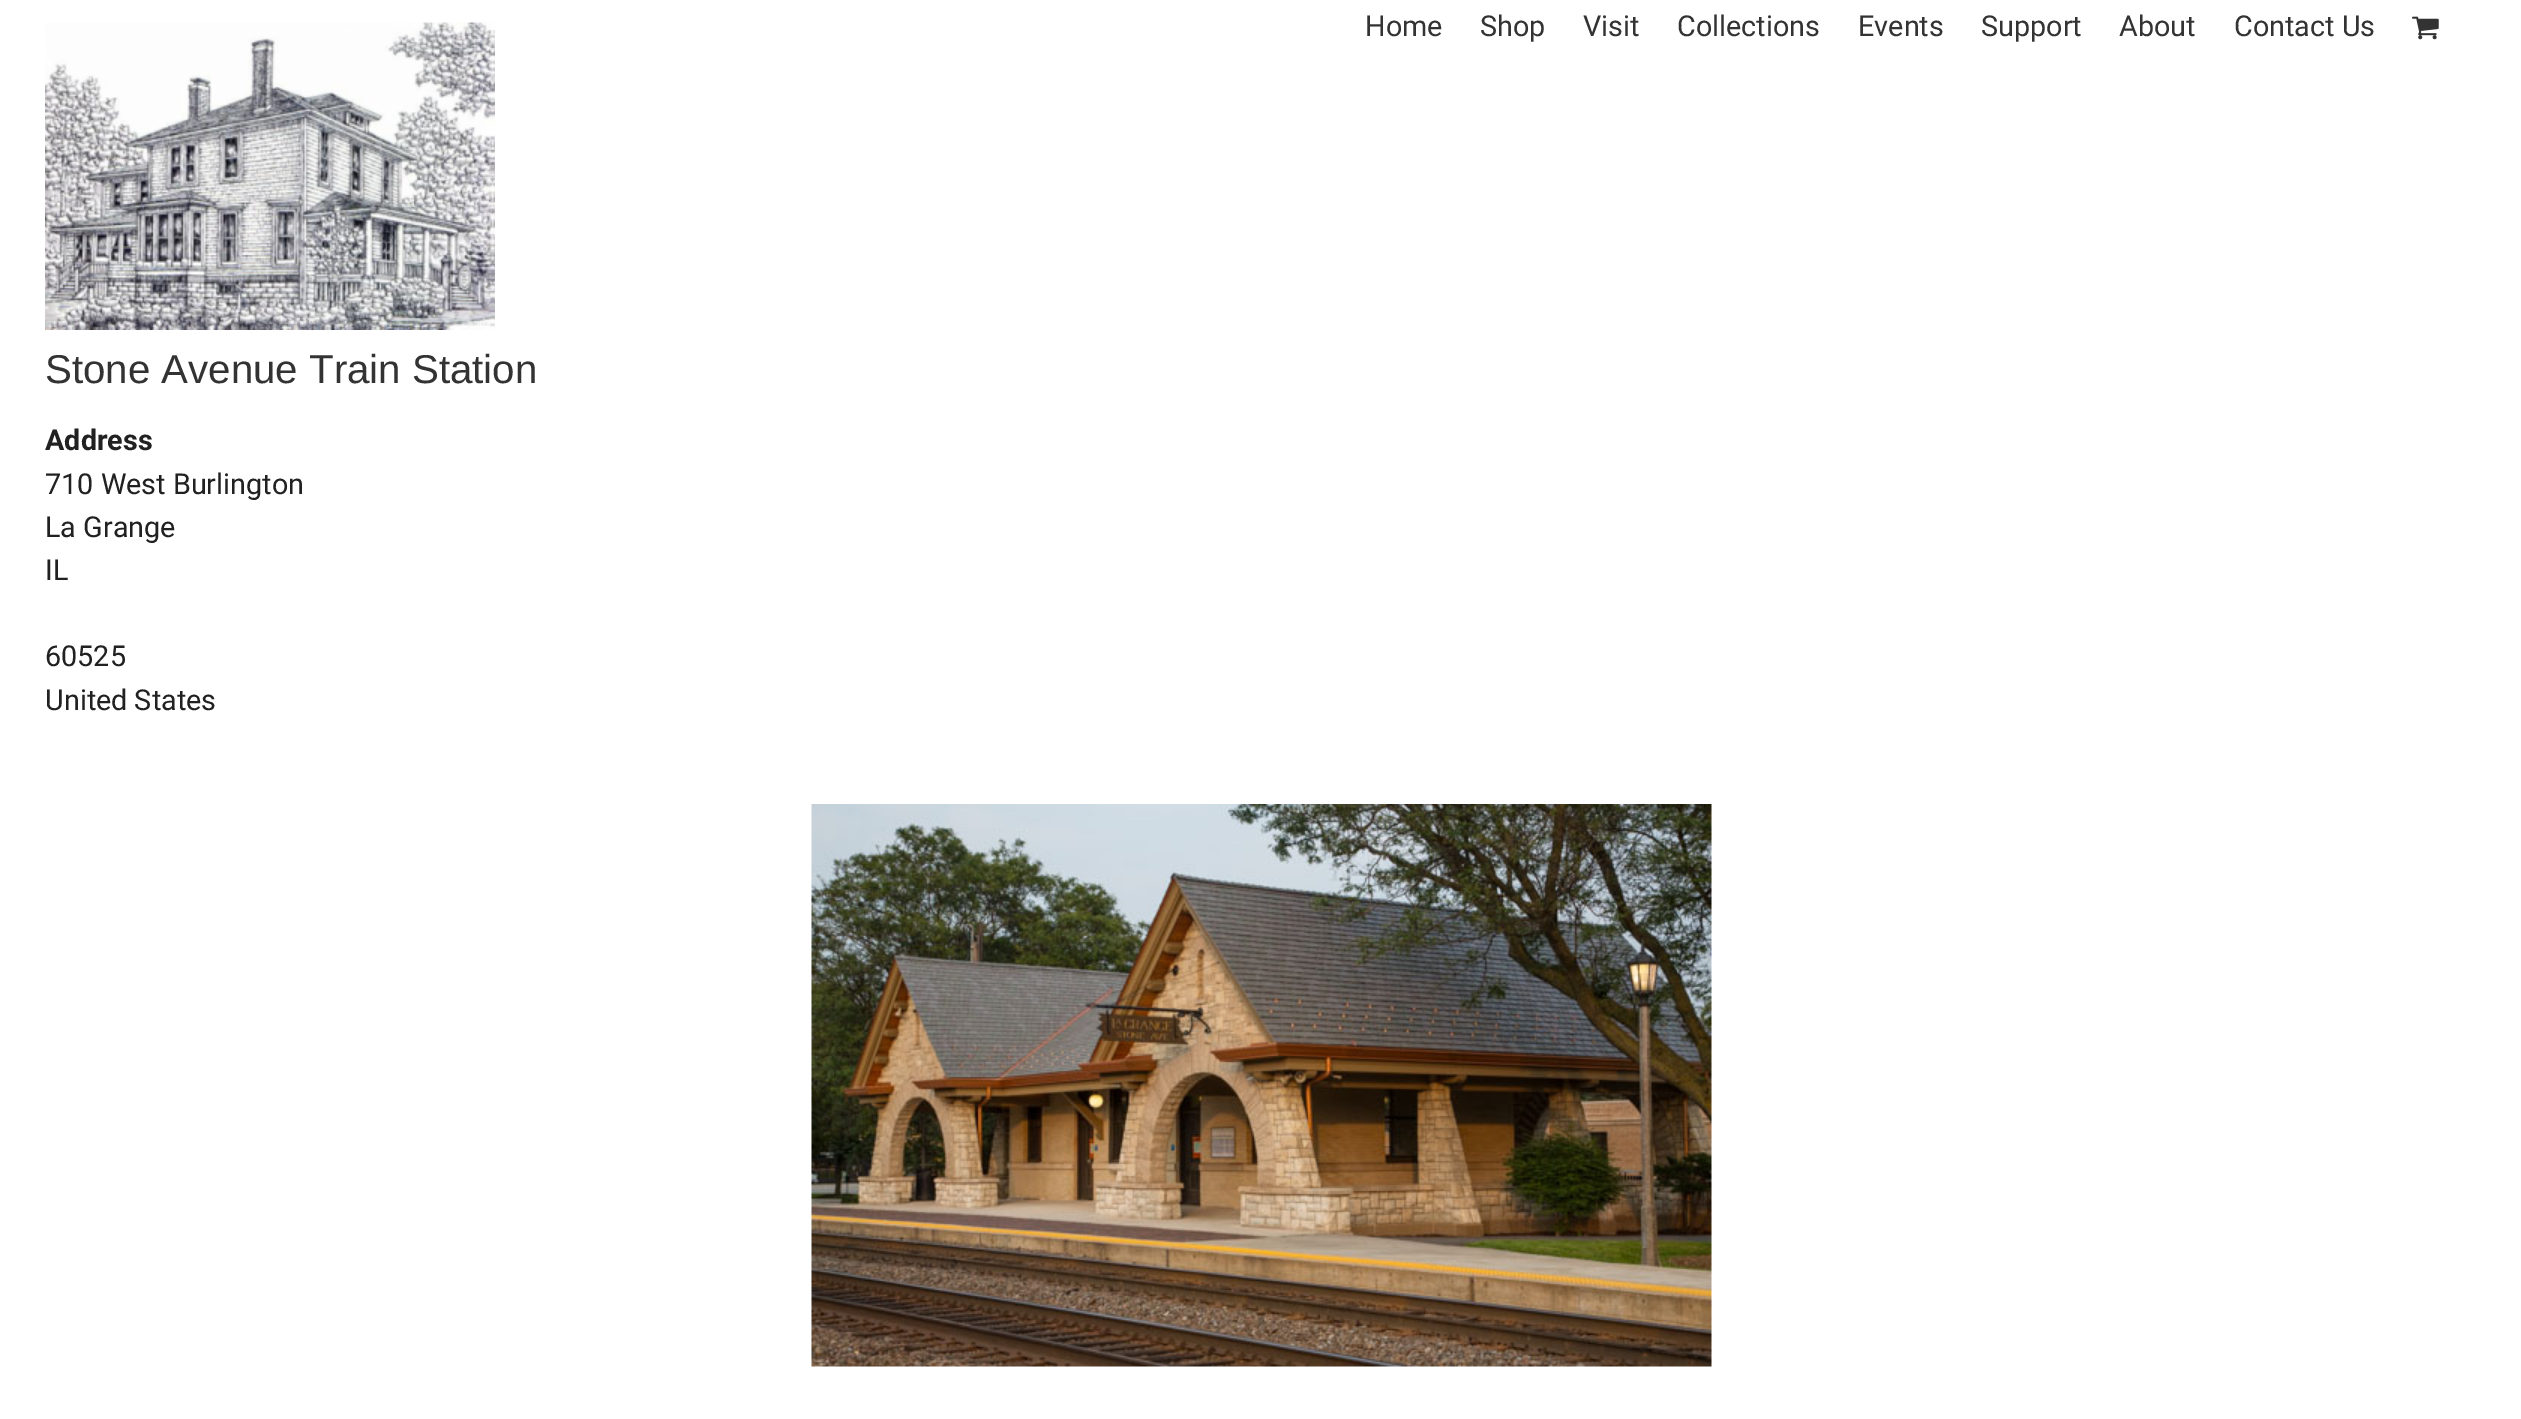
%!PS
<< /PageSize [2521 1419] >> setpagedevice
/co { dup -16 bitshift 255 div exch dup -8 bitshift 255 and 255 div exch 255 and 255 div setrgbcolor } def
/fn { [ exch dup neg 0 0 3 -1 roll 0 0 ] selectfont } def
/tx { co fn moveto show } def
/bx { co rectfill } def
/im { 5 dict begin { /h /w /y /x /name } { exch def } forall
  gsave x y translate w h scale
  w h 8 [w 0 0 h 0 0] name (r) file false 3 colorimage grestore end } def
0 1419 translate 1 -1 scale
4 setmiterlimit
0 0 2521 1419 16#FFFFFF bx
(media/1.raw) 45 22 450 308 im
(media/2.raw) 2412 16 27 24 im
(media/3.raw) 811 804 901 563 im
(Home) 1365 36 /Roboto-Regular 28.75 16#333333 tx
(Shop) 1480 36 /Roboto-Regular 28.75 16#333333 tx
(Visit) 1583 36 /Roboto-Regular 28.75 16#333333 tx
(Collections) 1677 36 /Roboto-Regular 28.75 16#333333 tx
(Events) 1858 36 /Roboto-Regular 28.75 16#333333 tx
(Support) 1981 36 /Roboto-Regular 28.75 16#333333 tx
(About) 2119 36 /Roboto-Regular 28.75 16#333333 tx
(Contact Us) 2234 36 /Roboto-Regular 28.75 16#333333 tx
(Stone Avenue Train Station) 45 383 /LiberationSans-Regular 40.25 16#333333 tx
(Address) 45 450 /Roboto-Bold 28.75 16#212121 tx
(710 West Burlington) 45 494 /Roboto-Regular 28.75 16#212121 tx
(La Grange) 45 537 /Roboto-Regular 28.75 16#212121 tx
(IL) 45 580 /Roboto-Regular 28.75 16#212121 tx
(60525) 45 666 /Roboto-Regular 28.75 16#212121 tx
(United States) 45 710 /Roboto-Regular 28.75 16#212121 tx
showpage
